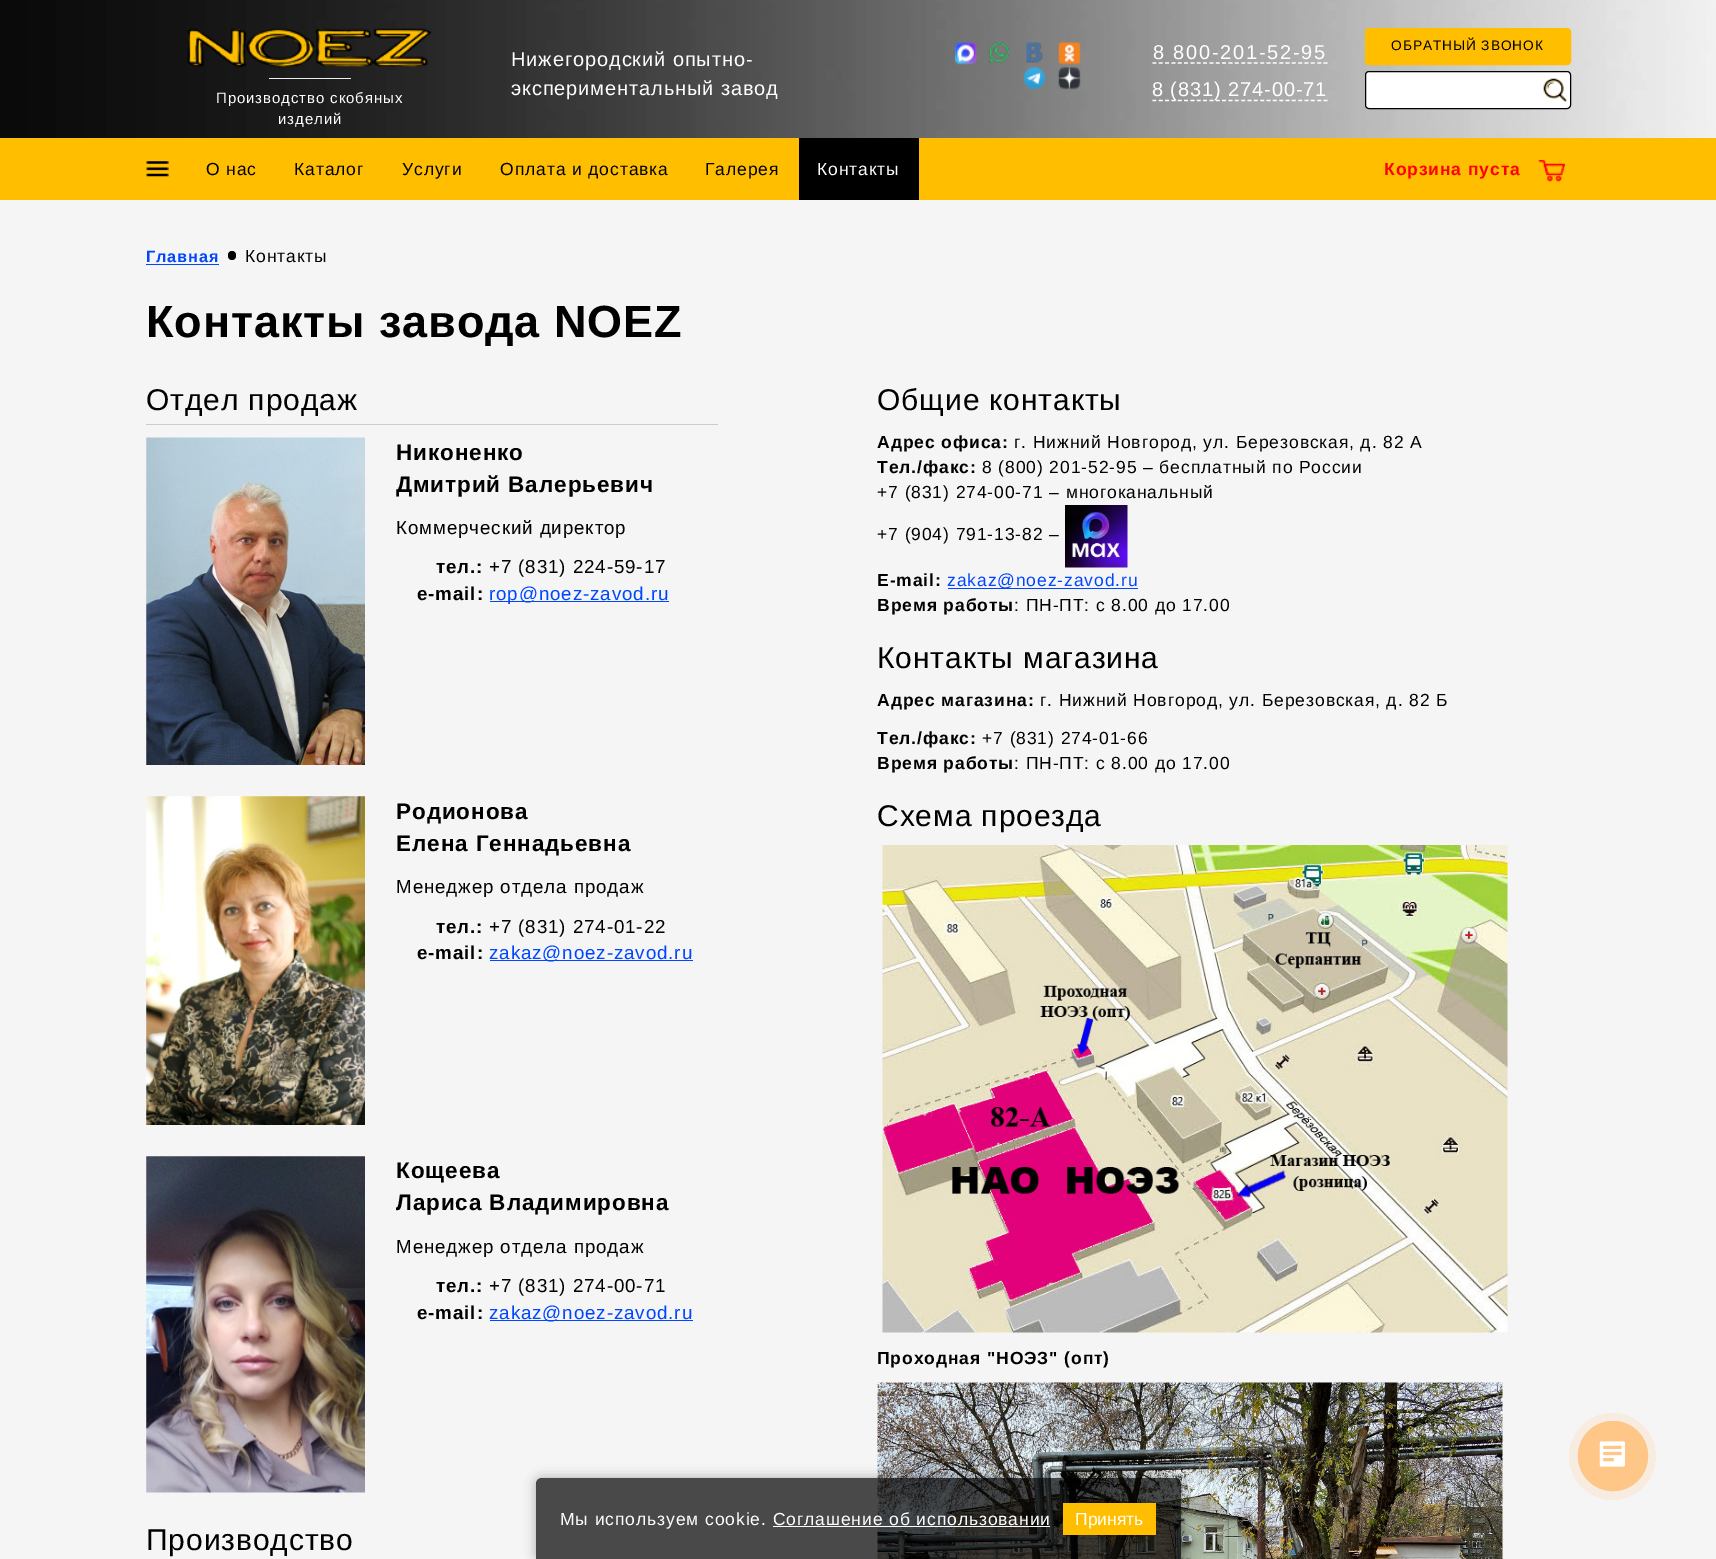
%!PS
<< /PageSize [1716 1559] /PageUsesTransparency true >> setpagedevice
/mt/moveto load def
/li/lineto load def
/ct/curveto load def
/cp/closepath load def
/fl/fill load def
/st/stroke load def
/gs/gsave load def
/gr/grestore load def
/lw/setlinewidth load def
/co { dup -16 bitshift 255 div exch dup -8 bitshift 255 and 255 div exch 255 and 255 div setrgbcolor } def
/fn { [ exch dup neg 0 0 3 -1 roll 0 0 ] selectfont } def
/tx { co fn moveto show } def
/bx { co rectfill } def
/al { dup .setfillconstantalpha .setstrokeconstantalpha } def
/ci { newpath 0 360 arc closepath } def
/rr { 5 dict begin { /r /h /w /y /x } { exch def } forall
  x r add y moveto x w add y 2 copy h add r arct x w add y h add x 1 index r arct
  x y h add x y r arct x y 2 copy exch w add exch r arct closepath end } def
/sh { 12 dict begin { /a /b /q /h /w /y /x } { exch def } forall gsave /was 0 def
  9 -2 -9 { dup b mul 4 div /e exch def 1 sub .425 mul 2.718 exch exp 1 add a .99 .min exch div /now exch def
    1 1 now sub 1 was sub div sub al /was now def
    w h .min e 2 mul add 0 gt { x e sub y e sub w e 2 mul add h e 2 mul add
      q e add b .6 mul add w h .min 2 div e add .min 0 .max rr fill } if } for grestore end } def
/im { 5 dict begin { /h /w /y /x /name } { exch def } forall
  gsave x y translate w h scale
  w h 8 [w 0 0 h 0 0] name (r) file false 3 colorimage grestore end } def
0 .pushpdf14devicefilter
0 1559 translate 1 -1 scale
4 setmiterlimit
0 0 1716 1559 16#F5F5F5 bx
(media/1.raw) 0 0 1716 138 im
(media/2.raw) 954 42 23 23 im
(media/3.raw) 988 42 21 21 im
(media/4.raw) 1026 42 17 21 im
(media/5.raw) 1058 42 23 23 im
(media/6.raw) 1023 67 23 23 im
(media/7.raw) 1058 67 23 23 im
16#FFFFFF co
1.2 lw
[3.75 2.59] 0 setdash
1152.5 63 mt 1327.5 63 li st
1152.5 100.5 mt 1327.5 100.5 li st
16#FFBF00 co
1365.5 28.5 205 36 3.5 rr gs fl gr
1 lw
[] 0 setdash
st
16#FFFFFF co
1365.5 71.5 205 37 3.5 rr gs fl gr
16#000000 co
st
(media/8.raw) 1543 78 24 24 im
(media/9.raw) 187 28 245 40 im
269 78 82 1 16#EEEEEE bx
0 138 1716 62 16#FFBF00 bx
(media/10.raw) 146 161 23 16 im
799 138 120 62 16#000000 bx
(media/11.raw) 1538 160 27 22 im
146 264 73 1 16#0046FF bx
16#000000 co
228 251 8 9 4 rr fl
146 424 572 1 16#CCCCCC bx
(media/12.raw) 146 437 219 328 im
490 601 179 1 16#0046FF bx
(media/13.raw) 146 796 219 329 im
490 960 203 1 16#0046FF bx
(media/14.raw) 146 1156 219 337 im
490 1320 203 1 16#0046FF bx
(media/15.raw) 1065 505 63 63 im
948 588 190 1 16#0046FF bx
(media/16.raw) 882 845 626 488 im
(media/17.raw) 877 1382 626 177 im
16#F7ECDF co
1612.5 1456.5 43.5 ci fl
16#FEC788 co
1613 1456 34.5 ci st
1613 1456 35 ci fl
(media/18.raw) 1599 1441 26 26 im
gs
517 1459 mt 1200 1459 li 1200 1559 li 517 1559 li cp 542 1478 mt 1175 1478 li 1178.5 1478 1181 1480.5 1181 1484 ct 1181 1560 li 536 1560 li 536 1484 li 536 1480.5 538.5 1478 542 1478 ct cp eoclip newpath
16#000000 co
536 1478 645 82 6 6 .3 sh
gr
0.7 al
16#000000 co
542 1478 mt 1175 1478 li 1178.5 1478 1181 1480.5 1181 1484 ct 1181 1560 li 536 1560 li 536 1484 li 536 1480.5 538.5 1478 542 1478 ct cp fl
1 al
773 1526 277 1 16#FFFFFF bx
1063 1503 93 32 16#FFBF00 bx
/LiberationSans-Regular 20 fn
16#FFFFFF co
511 66 mt .9 0 (Нижегородский опытно-) ashow
511 95 mt .9 0 (экспериментальный завод) ashow
1153 59 mt 1.75 0 (8 800-201-52-95) ashow
1152 96 mt .9 0 (8 \(831\) 274-00-71) ashow
/LiberationSans-Regular 13.75 fn
16#000000 co
1391 50 mt .9 0 (ОБРАТНЫЙ ЗВОНОК) ashow
/LiberationSans-Regular 15 fn
16#FFFFFF co
216 103 mt .9 0 (Производство скобяных) ashow
278 124 mt .9 0 (изделий) ashow
/LiberationSans-Regular 17.5 fn
16#000000 co
206 175 mt .9 0 (О нас) ashow
294 175 mt .9 0 (Каталог) ashow
402 175 mt .9 0 (Услуги) ashow
500 175 mt .9 0 (Оплата и доставка) ashow
705 175 mt .9 0 (Галерея) ashow
16#FFFFFF co
817 175 mt .9 0 (Контакты) ashow
/LiberationSans-Bold 17.5 fn
16#FF0000 co
1384 175 mt .9 0 (Корзина пуста) ashow
/LiberationSans-Bold 16.25 fn
16#0046FF co
146 262 mt .9 0 (Главная) ashow
/LiberationSans-Regular 17.5 fn
16#000000 co
245 262 mt .9 0 (Контакты) ashow
/LiberationSans-Bold 45 fn
146 337 mt .9 0 (Контакты завода NOEZ) ashow
/LiberationSans-Regular 30 fn
146 410 mt .9 0 (Отдел продаж) ashow
/LiberationSans-Bold 22.5 fn
396 460 mt .9 0 (Никоненко) ashow
396 492 mt .9 0 (Дмитрий Валерьевич) ashow
/LiberationSans-Regular 18.75 fn
396 534 mt .9 0 (Коммерческий директор) ashow
/LiberationSans-Bold 18.75 fn
436 573 mt .9 0 (тел.:) ashow
/LiberationSans-Regular 18.75 fn
489 573 mt .9 0 (+7 \(831\) 224-59-17) ashow
/LiberationSans-Bold 18.75 fn
417 600 mt .9 0 (e-mail:) ashow
/LiberationSans-Regular 18.75 fn
16#0046FF co
489 600 mt .9 0 (rop@noez-zavod.ru) ashow
/LiberationSans-Bold 22.5 fn
16#000000 co
396 819 mt .9 0 (Родионова) ashow
396 851 mt .9 0 (Елена Геннадьевна) ashow
/LiberationSans-Regular 18.75 fn
396 893 mt .9 0 (Менеджер отдела продаж) ashow
/LiberationSans-Bold 18.75 fn
436 933 mt .9 0 (тел.:) ashow
/LiberationSans-Regular 18.75 fn
489 933 mt .9 0 (+7 \(831\) 274-01-22) ashow
/LiberationSans-Bold 18.75 fn
417 959 mt .9 0 (e-mail:) ashow
/LiberationSans-Regular 18.75 fn
16#0046FF co
489 959 mt .9 0 (zakaz@noez-zavod.ru) ashow
/LiberationSans-Bold 22.5 fn
16#000000 co
396 1178 mt .9 0 (Кощеева) ashow
396 1210 mt .9 0 (Лариса Владимировна) ashow
/LiberationSans-Regular 18.75 fn
396 1253 mt .9 0 (Менеджер отдела продаж) ashow
/LiberationSans-Bold 18.75 fn
436 1292 mt .9 0 (тел.:) ashow
/LiberationSans-Regular 18.75 fn
489 1292 mt .9 0 (+7 \(831\) 274-00-71) ashow
/LiberationSans-Bold 18.75 fn
417 1319 mt .9 0 (e-mail:) ashow
/LiberationSans-Regular 18.75 fn
16#0046FF co
489 1319 mt .9 0 (zakaz@noez-zavod.ru) ashow
/LiberationSans-Regular 30 fn
16#000000 co
146 1550 mt .9 0 (Производство) ashow
877 410 mt .9 0 (Общие контакты) ashow
/LiberationSans-Bold 17.5 fn
877 448 mt .9 0 (Адрес офиса:) ashow
/LiberationSans-Regular 17.5 fn
1014 448 mt .9 0 (г. Нижний Новгород, ул. Березовская, д. 82 А) ashow
/LiberationSans-Bold 17.5 fn
877 473 mt .9 0 (Тел./факс:) ashow
/LiberationSans-Regular 17.5 fn
982 473 mt .9 0 (8 \(800\) 201-52-95 – бесплатный по России) ashow
877 498 mt .9 0 (+7 \(831\) 274-00-71 – многоканальный) ashow
877 540 mt .9 0 (+7 \(904\) 791-13-82 –) ashow
/LiberationSans-Bold 17.5 fn
877 586 mt .9 0 (E-mail:) ashow
/LiberationSans-Regular 17.5 fn
16#0046FF co
947 586 mt .9 0 (zakaz@noez-zavod.ru) ashow
/LiberationSans-Bold 17.5 fn
16#000000 co
877 611 mt .9 0 (Время работы) ashow
/LiberationSans-Regular 17.5 fn
1014 611 mt .9 0 (: ПН-ПТ: с 8.00 до 17.00) ashow
/LiberationSans-Regular 30 fn
877 668 mt .9 0 (Контакты магазина) ashow
/LiberationSans-Bold 17.5 fn
877 706 mt .9 0 (Адрес магазина:) ashow
/LiberationSans-Regular 17.5 fn
1040 706 mt .9 0 (г. Нижний Новгород, ул. Березовская, д. 82 Б) ashow
/LiberationSans-Bold 17.5 fn
877 744 mt .9 0 (Тел./факс:) ashow
/LiberationSans-Regular 17.5 fn
982 744 mt .9 0 (+7 \(831\) 274-01-66) ashow
/LiberationSans-Bold 17.5 fn
877 769 mt .9 0 (Время работы) ashow
/LiberationSans-Regular 17.5 fn
1014 769 mt .9 0 (: ПН-ПТ: c 8.00 до 17.00) ashow
/LiberationSans-Regular 30 fn
877 826 mt .9 0 (Схема проезда) ashow
/LiberationSans-Bold 17.5 fn
877 1364 mt .9 0 (Проходная "НОЭЗ" \(опт\)) ashow
/LiberationSans-Regular 17.5 fn
16#FFFFFF co
560 1525 mt .9 0 (Мы используем cookie. Соглашение об использовании) ashow
(Принять) 1075 1525 /LiberationSans-Regular 17.5 16#FFFFFF tx
.poppdf14devicefilter showpage
